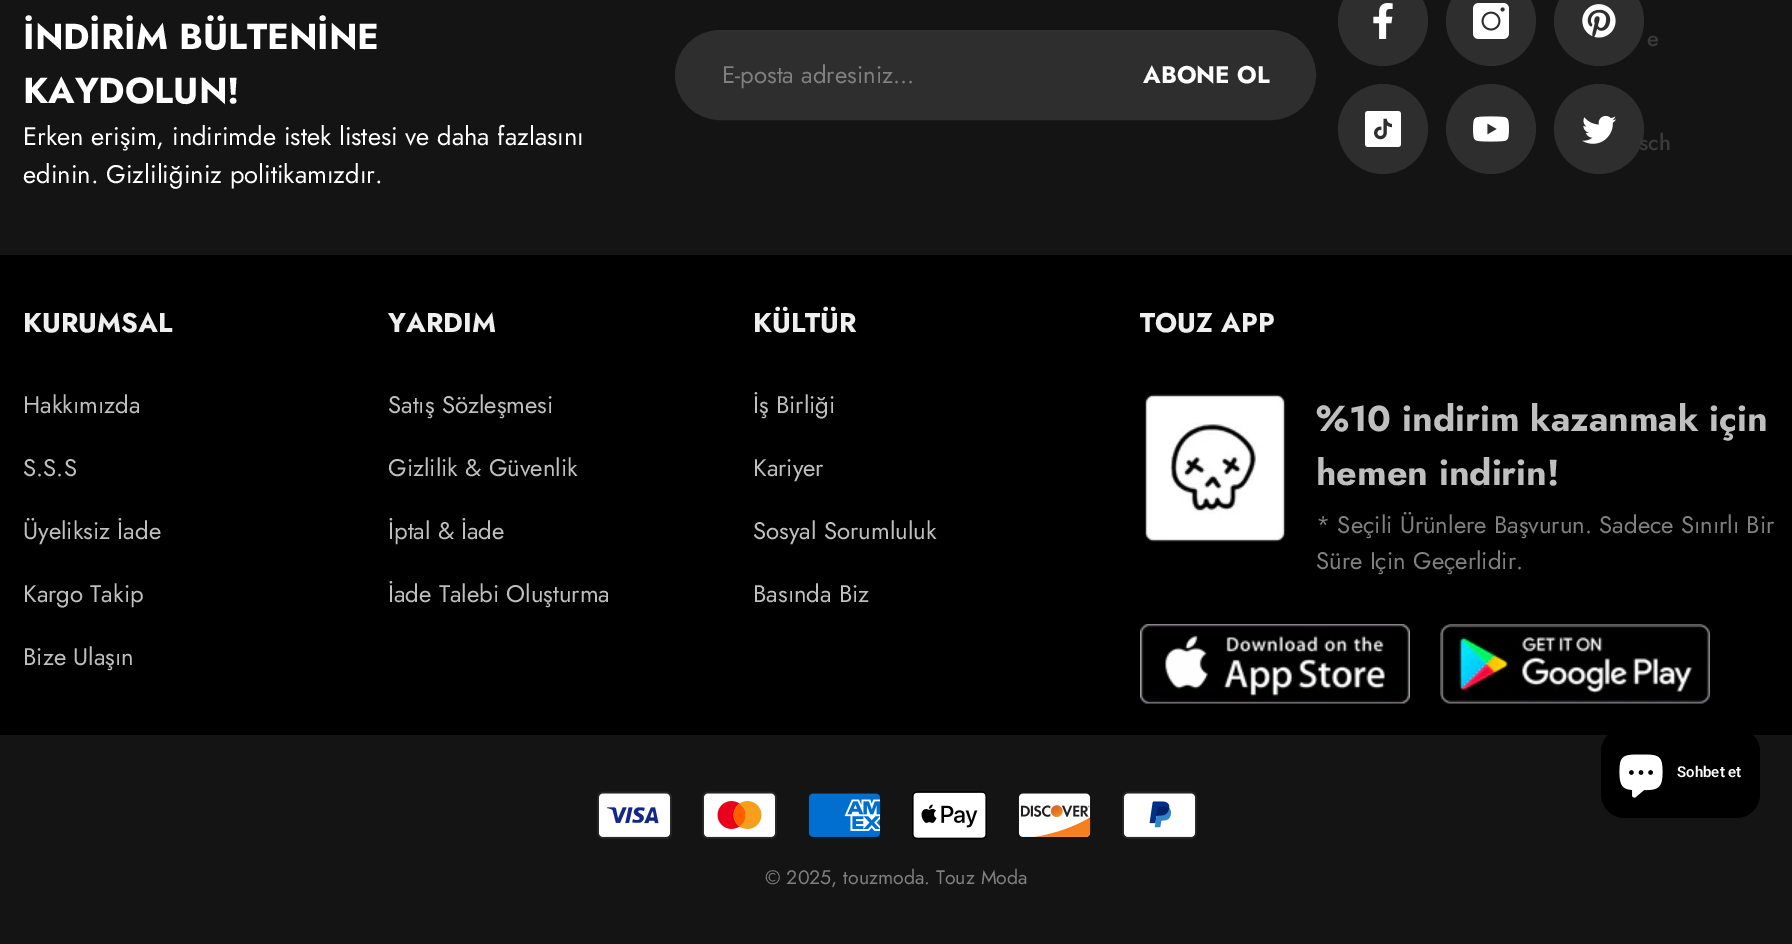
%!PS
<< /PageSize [1792 944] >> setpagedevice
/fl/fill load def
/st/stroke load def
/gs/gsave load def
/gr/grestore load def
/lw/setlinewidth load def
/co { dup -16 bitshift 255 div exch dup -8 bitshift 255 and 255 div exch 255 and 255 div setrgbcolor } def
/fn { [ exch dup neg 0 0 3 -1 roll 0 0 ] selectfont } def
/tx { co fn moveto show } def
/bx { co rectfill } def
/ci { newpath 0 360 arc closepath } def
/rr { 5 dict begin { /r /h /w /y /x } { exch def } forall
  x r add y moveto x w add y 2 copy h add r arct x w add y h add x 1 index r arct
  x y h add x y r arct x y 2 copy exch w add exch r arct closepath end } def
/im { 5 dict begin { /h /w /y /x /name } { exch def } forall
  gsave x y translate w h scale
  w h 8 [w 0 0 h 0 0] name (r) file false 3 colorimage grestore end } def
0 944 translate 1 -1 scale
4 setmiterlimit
0 0 1792 944 16#000000 bx
0 0 1792 255 16#141414 bx
16#2E2E2E co
676 31 639 88 44 rr gs fl gr
2 lw
st
1383 21 45 ci fl
(media/1.raw) 1373 3 20 36 im
1491 21 45 ci fl
(media/2.raw) 1473 3 36 36 im
1599 21 45 ci fl
(media/3.raw) 1582 4 34 34 im
1383 129 45 ci fl
(media/4.raw) 1365 111 36 36 im
1491 129 45 ci fl
(media/5.raw) 1473 116 36 26 im
1599 129 45 ci fl
(media/6.raw) 1582 115 35 29 im
(media/7.raw) 1145 394 141 148 im
(media/8.raw) 1140 624 270 80 im
(media/9.raw) 1440 624 270 80 im
0 735 1792 209 16#141414 bx
(media/10.raw) 597 791 75 48 im
(media/11.raw) 702 791 75 48 im
(media/12.raw) 809 793 72 44 im
(media/13.raw) 912 791 75 49 im
(media/14.raw) 1018 793 73 44 im
(media/15.raw) 1122 791 75 48 im
16#000000 co
1601 728 159 90 24 rr fl
(media/16.raw) 1619 754 44 44 im
(İNDİRİM BÜLTENİNE) 23 49 /Jost-Bold 36 16#FFFFFF tx
(KAYDOLUN!) 23 103 /Jost-Bold 36 16#FFFFFF tx
(Erken erişim, indirimde istek listesi ve daha fazlasını) 23 145 /Jost-Regular 25.5 16#FFFFFF tx
(edinin. Gizliliğiniz politikamızdır.) 23 183 /Jost-Regular 25.5 16#FFFFFF tx
(E-posta adresiniz...) 722 83 /Jost-Regular 24 16#808080 tx
(ABONE OL) 1143 83 /Jost-Bold 24 16#FFFFFF tx
(KURUMSAL) 23 332 /Jost-Bold 27 16#EFEFEF tx
(Hakkımızda) 23 413 /Jost-Regular 24 16#BFBFBF tx
(S.S.S) 23 476 /Jost-Regular 24 16#BFBFBF tx
(Üyeliksiz İade) 23 539 /Jost-Regular 24 16#BFBFBF tx
(Kargo Takip) 23 602 /Jost-Regular 24 16#BFBFBF tx
(Bize Ulaşın) 23 665 /Jost-Regular 24 16#BFBFBF tx
(YARDIM) 388 332 /Jost-Bold 27 16#EFEFEF tx
(Satış Sözleşmesi) 388 413 /Jost-Regular 24 16#BFBFBF tx
(Gizlilik & Güvenlik) 388 476 /Jost-Regular 24 16#BFBFBF tx
(İptal & İade) 388 539 /Jost-Regular 24 16#BFBFBF tx
(İade Talebi Oluşturma) 388 602 /Jost-Regular 24 16#BFBFBF tx
(KÜLTÜR) 753 332 /Jost-Bold 27 16#EFEFEF tx
(İş Birliği) 753 413 /Jost-Regular 24 16#BFBFBF tx
(Kariyer) 753 476 /Jost-Regular 24 16#BFBFBF tx
(Sosyal Sorumluluk) 753 539 /Jost-Regular 24 16#BFBFBF tx
(Basında Biz) 753 602 /Jost-Regular 24 16#BFBFBF tx
(TOUZ APP) 1140 332 /Jost-Bold 27 16#EFEFEF tx
(%10 indirim kazanmak için) 1316 431 /Jost-Bold 36 16#BFBFBF tx
(hemen indirin!) 1316 485 /Jost-Bold 36 16#BFBFBF tx
(* Seçili Ürünlere Başvurun. Sadece Sınırlı Bir) 1316 533 /Jost-Regular 24 16#808080 tx
(Süre Için Geçerlidir.) 1316 569 /Jost-Regular 24 16#808080 tx
(© 2025, touzmoda. Touz Moda) 765 884 /Jost-Regular 19.5 16#808080 tx
(e) 1647 46 /Jost-Medium 22 16#3A3A3A tx
(sch) 1639 150 /Jost-Medium 22 16#3A3A3A tx
(Sohbet et) 1677 777 /Roboto-SemiBold 15 16#FFFFFF tx
showpage
